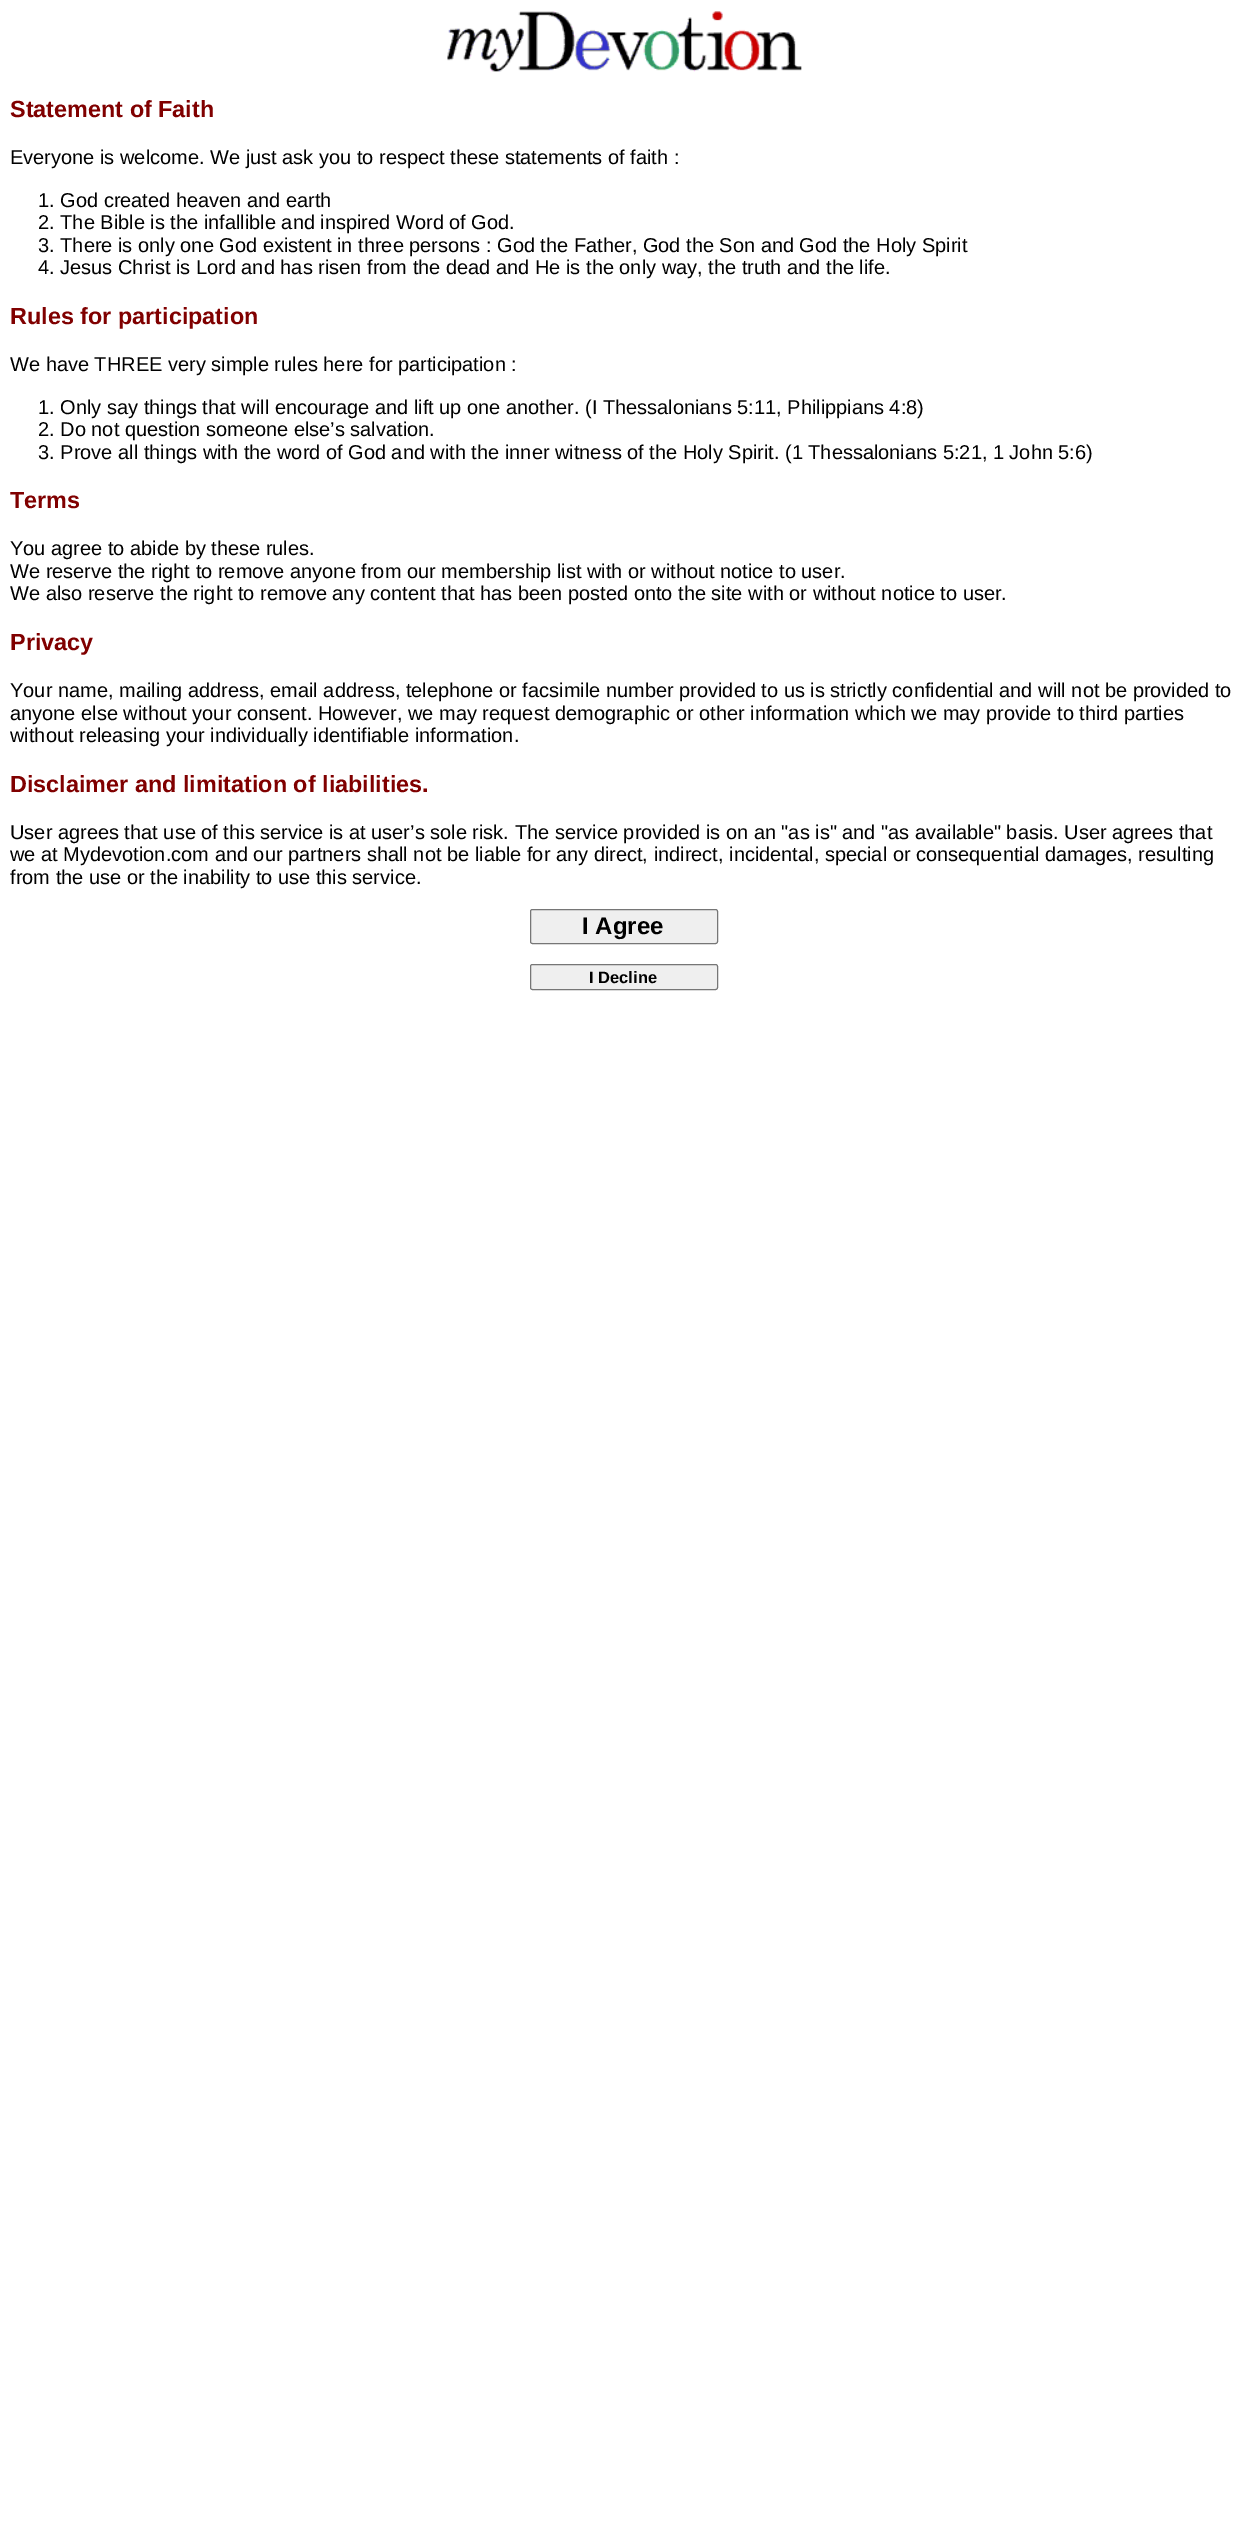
%!PS
<< /PageSize [1246 2533] >> setpagedevice
/fl/fill load def
/st/stroke load def
/gs/gsave load def
/gr/grestore load def
/co { dup -16 bitshift 255 div exch dup -8 bitshift 255 and 255 div exch 255 and 255 div setrgbcolor } def
/fn { [ exch dup neg 0 0 3 -1 roll 0 0 ] selectfont } def
/tx { co fn moveto show } def
/bx { co rectfill } def
/rr { 5 dict begin { /r /h /w /y /x } { exch def } forall
  x r add y moveto x w add y 2 copy h add r arct x w add y h add x 1 index r arct
  x y h add x y r arct x y 2 copy exch w add exch r arct closepath end } def
/im { 5 dict begin { /h /w /y /x /name } { exch def } forall
  gsave x y translate w h scale
  w h 8 [w 0 0 h 0 0] name (r) file false 3 colorimage grestore end } def
0 2533 translate 1 -1 scale
4 setmiterlimit
0 0 1246 2533 16#FFFFFF bx
(media/1.raw) 447 11 355 61 im
16#EFEFEF co
530.5 909.5 187 34 2 rr gs fl gr
16#767676 co
st
16#EFEFEF co
530.5 964.5 187 25 2 rr gs fl gr
16#767676 co
st
(Statement of Faith) 10 117 /LiberationSans-Bold 23.4 16#800000 tx
(Everyone is welcome. We just ask you to respect these statements of faith :) 10 164 /LiberationSans-Regular 20 16#000000 tx
(1. God created heaven and earth) 38 207 /LiberationSans-Regular 20 16#000000 tx
(2. The Bible is the infallible and inspired Word of God.) 38 229 /LiberationSans-Regular 20 16#000000 tx
(3. There is only one God existent in three persons : God the Father, God the Son and God the Holy Spirit) 38 252 /LiberationSans-Regular 20 16#000000 tx
(4. Jesus Christ is Lord and has risen from the dead and He is the only way, the truth and the life.) 38 274 /LiberationSans-Regular 20 16#000000 tx
(Rules for participation) 10 324 /LiberationSans-Bold 23.4 16#800000 tx
(We have THREE very simple rules here for participation :) 10 371 /LiberationSans-Regular 20 16#000000 tx
(1. Only say things that will encourage and lift up one another. \(I Thessalonians 5:11, Philippians 4:8\)) 38 414 /LiberationSans-Regular 20 16#000000 tx
(2. Do not question someone else’s salvation.) 38 436 /LiberationSans-Regular 20 16#000000 tx
(3. Prove all things with the word of God and with the inner witness of the Holy Spirit. \(1 Thessalonians 5:21, 1 John 5:6\)) 38 459 /LiberationSans-Regular 20 16#000000 tx
(Terms) 10 508 /LiberationSans-Bold 23.4 16#800000 tx
(You agree to abide by these rules.) 10 555 /LiberationSans-Regular 20 16#000000 tx
(We reserve the right to remove anyone from our membership list with or without notice to user.) 10 578 /LiberationSans-Regular 20 16#000000 tx
(We also reserve the right to remove any content that has been posted onto the site with or without notice to user.) 10 600 /LiberationSans-Regular 20 16#000000 tx
(Privacy) 10 650 /LiberationSans-Bold 23.4 16#800000 tx
(Your name, mailing address, email address, telephone or facsimile number provided to us is strictly confidential and will not be provided to) 10 697 /LiberationSans-Regular 20 16#000000 tx
(anyone else without your consent. However, we may request demographic or other information which we may provide to third parties) 10 720 /LiberationSans-Regular 20 16#000000 tx
(without releasing your individually identifiable information.) 10 742 /LiberationSans-Regular 20 16#000000 tx
(Disclaimer and limitation of liabilities.) 10 792 /LiberationSans-Bold 23.4 16#800000 tx
(User agrees that use of this service is at user’s sole risk. The service provided is on an "as is" and "as available" basis. User agrees that) 10 839 /LiberationSans-Regular 20 16#000000 tx
(we at Mydevotion.com and our partners shall not be liable for any direct, indirect, incidental, special or consequential damages, resulting) 10 861 /LiberationSans-Regular 20 16#000000 tx
(from the use or the inability to use this service.) 10 884 /LiberationSans-Regular 20 16#000000 tx
(I Agree) 582 934 /LiberationSans-Bold 24 16#000000 tx
(I Decline) 589 983 /LiberationSans-Bold 16.5 16#000000 tx
showpage
